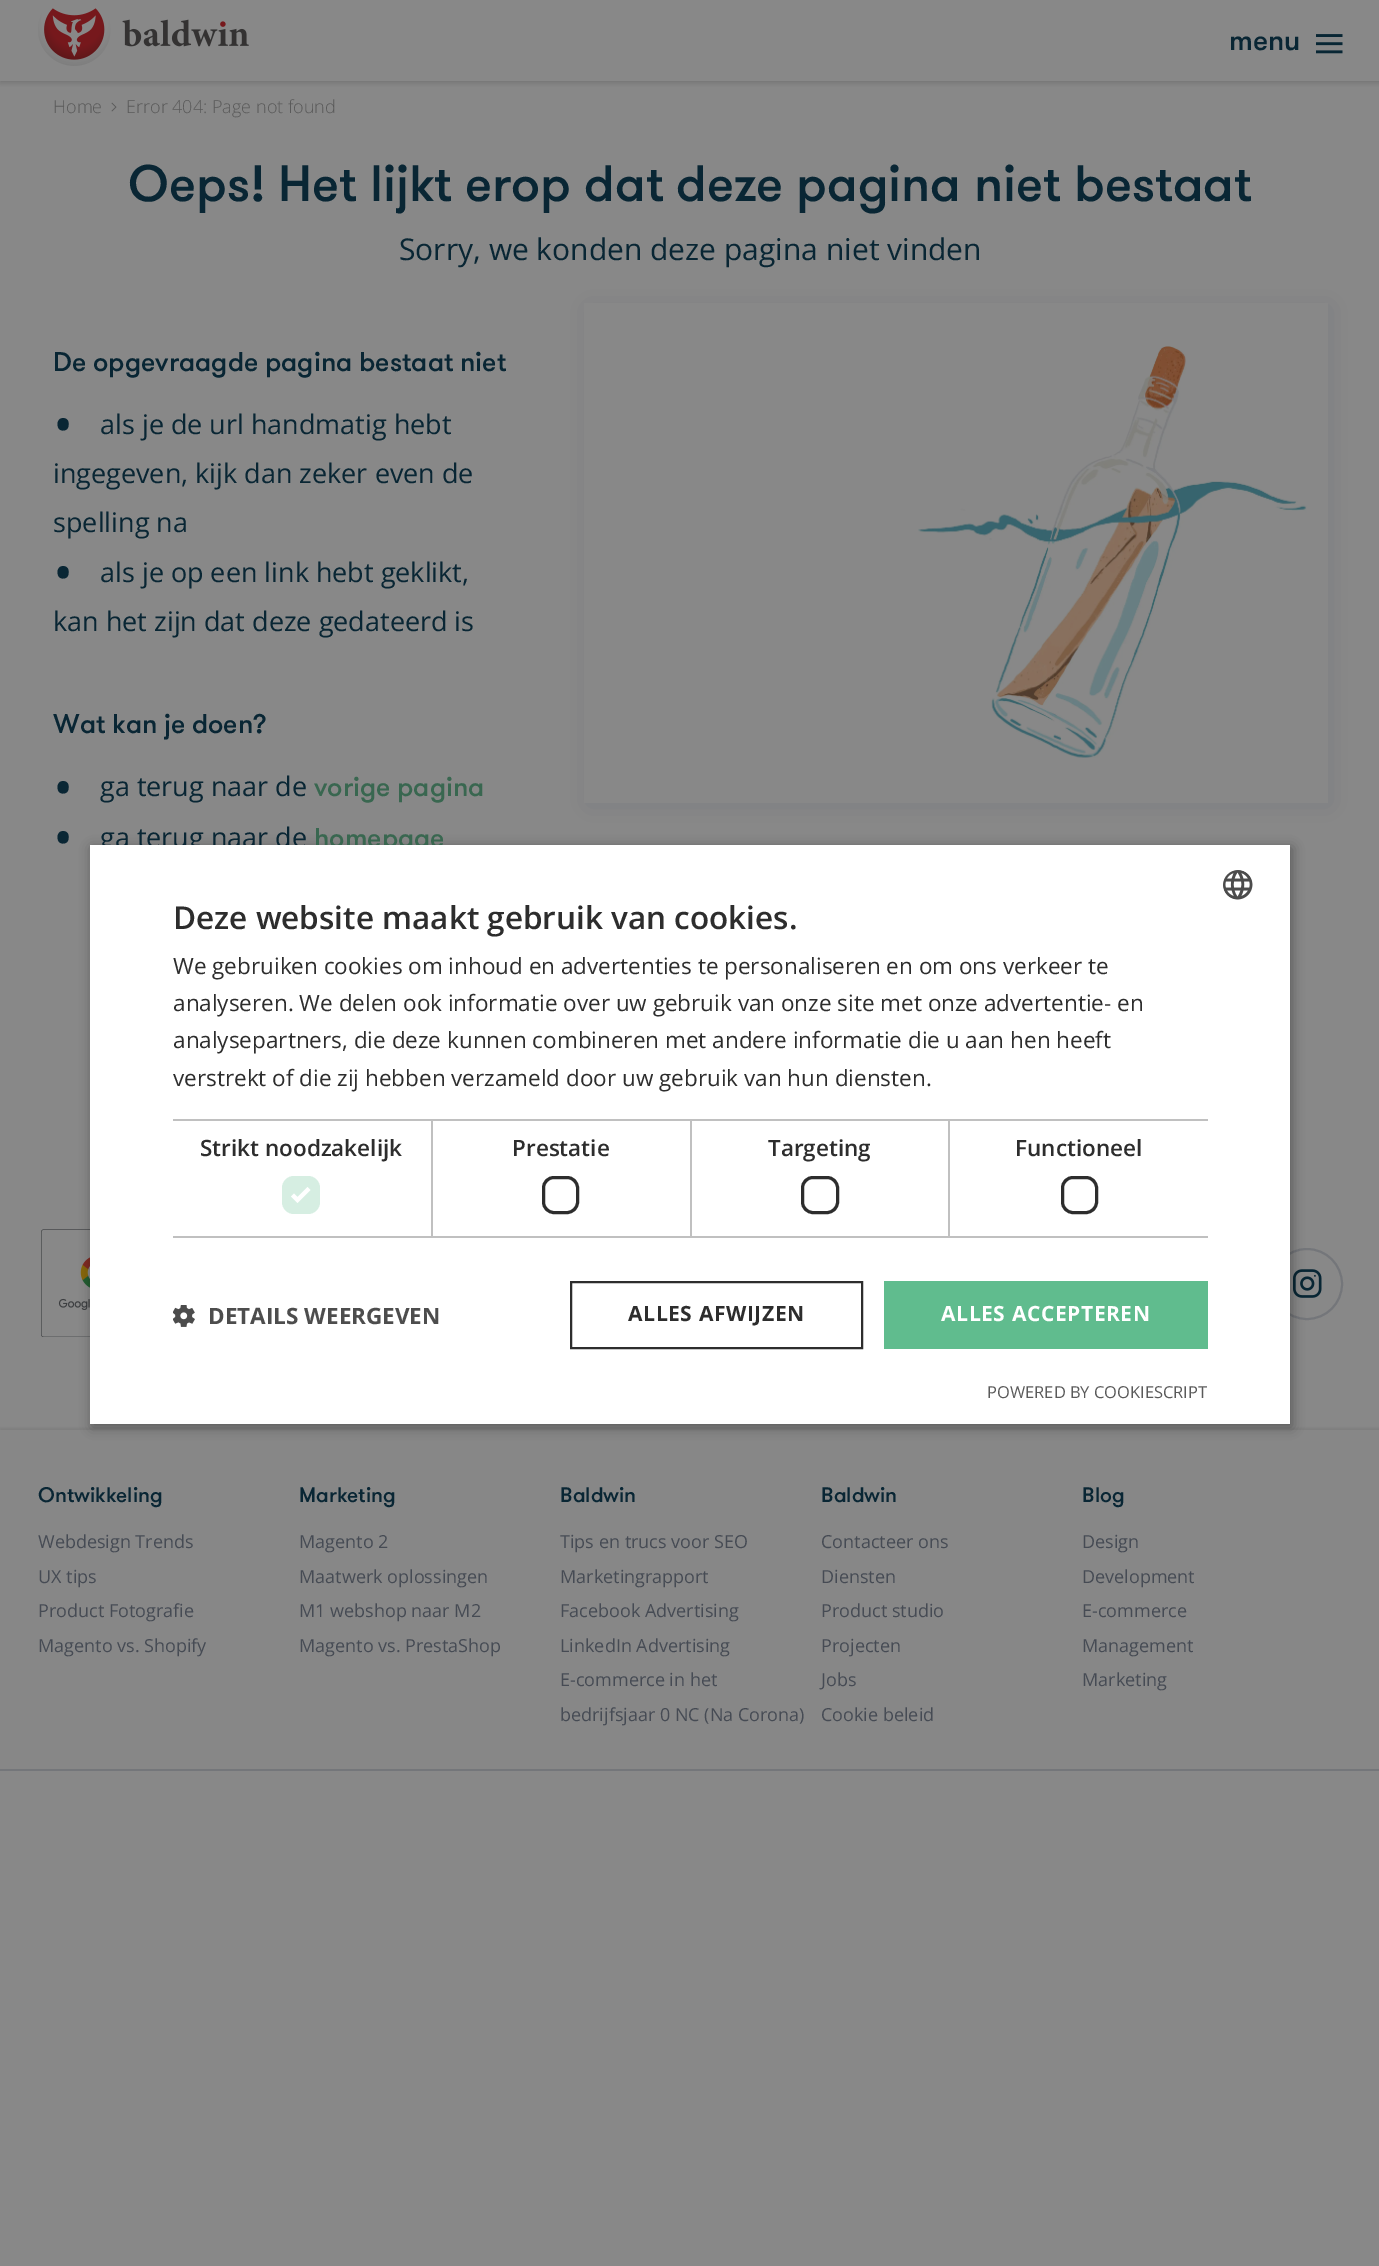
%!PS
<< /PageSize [1379 2266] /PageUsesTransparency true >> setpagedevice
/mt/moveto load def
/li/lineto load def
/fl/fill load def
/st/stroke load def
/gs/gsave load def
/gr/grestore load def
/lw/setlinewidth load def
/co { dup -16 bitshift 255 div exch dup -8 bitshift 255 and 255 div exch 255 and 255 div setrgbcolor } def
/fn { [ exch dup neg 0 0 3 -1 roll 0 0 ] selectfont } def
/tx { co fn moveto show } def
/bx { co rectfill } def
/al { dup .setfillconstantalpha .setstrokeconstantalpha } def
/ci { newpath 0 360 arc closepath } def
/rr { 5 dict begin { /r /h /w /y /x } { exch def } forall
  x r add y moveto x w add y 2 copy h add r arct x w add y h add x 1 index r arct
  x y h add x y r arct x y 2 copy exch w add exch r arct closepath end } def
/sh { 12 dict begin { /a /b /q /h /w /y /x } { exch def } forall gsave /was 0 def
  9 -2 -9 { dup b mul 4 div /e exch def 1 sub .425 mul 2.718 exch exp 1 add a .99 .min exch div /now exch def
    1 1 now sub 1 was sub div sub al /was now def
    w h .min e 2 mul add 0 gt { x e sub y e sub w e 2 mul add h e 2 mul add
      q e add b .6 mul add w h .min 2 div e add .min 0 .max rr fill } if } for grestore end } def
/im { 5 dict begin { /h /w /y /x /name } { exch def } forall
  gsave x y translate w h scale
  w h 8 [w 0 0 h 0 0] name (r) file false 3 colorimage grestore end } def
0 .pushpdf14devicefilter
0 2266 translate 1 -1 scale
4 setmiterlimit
0 0 1379 2266 16#888888 bx
gs
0 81 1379 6 rectclip
16#090909 co
0 2 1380 81 0 3 .17 sh
gr
(media/1.raw) 38 8 211 58 im
(media/2.raw) 1316 34 27 20 im
(media/3.raw) 111 102 6 10 im
16#7C7D81 co
587 306 744 500 0 13.5 1 sh
584 303 744 500 16#888888 bx
(media/4.raw) 918 346 389 412 im
(media/7.raw) 41 1229 49 108 im
16#74767A co
2 lw
1307 1284 35 ci st
(media/8.raw) 1293 1269 29 29 im
16#090909 co
0 1428 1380 341 0 1.5 .1 sh
0 1430 1379 339 16#878787 bx
16#000000 co
92 848 1200 579 0 6 .35 sh
0 1769 1379 2 16#74767A bx
(menu) 1229 50 /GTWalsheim-Medium 28.5 16#092634 tx
(Home) 53 113 /OpenSans-Light 18 16#5A5A5A tx
(Error 404: Page not found) 126 113 /OpenSans-Light 18 16#5A5A5A tx
(Oeps! Het lijkt erop dat deze pagina niet bestaat) 128 201 /GTWalsheim-Medium 51 16#092634 tx
(Sorry, we konden deze pagina niet vinden) 399 260 /OpenSans-Regular 30 16#092634 tx
(De opgevraagde pagina bestaat niet) 53 371 /GTWalsheim-Medium 27 16#092634 tx
(•) 53 444 /OpenSans-Regular 54 16#092634 tx
(als je de url handmatig hebt) 100 434 /OpenSans-Regular 27 16#092634 tx
(ingegeven, kijk dan zeker even de) 53 483 /OpenSans-Regular 27 16#092634 tx
(spelling na) 53 532 /OpenSans-Regular 27 16#092634 tx
(•) 53 592 /OpenSans-Regular 54 16#092634 tx
(als je op een link hebt geklikt,) 100 582 /OpenSans-Regular 27 16#092634 tx
(kan het zijn dat deze gedateerd is) 53 631 /OpenSans-Regular 27 16#092634 tx
(Wat kan je doen?) 53 733 /GTWalsheim-Medium 27 16#092634 tx
(•) 53 807 /OpenSans-Regular 54 16#092634 tx
(ga terug naar de) 100 796 /OpenSans-Regular 27 16#092634 tx
(vorige pagina) 314 796 /GTWalsheim-Medium 27 16#396750 tx
(•) 53 857 /OpenSans-Regular 54 16#092634 tx
(ga terug naar de) 100 847 /OpenSans-Regular 27 16#092634 tx
(homepage) 314 847 /GTWalsheim-Medium 27 16#396750 tx
90 845 1200 579 16#FFFFFF bx
(media/5.raw) 1223 870 30 30 im
(Deze website maakt gebruik van cookies.) 173 929 /OpenSans-SemiBold 31.5 16#2D2D2D tx
(We gebruiken cookies om inhoud en advertenties te personaliseren en om ons verkeer te) 173 974 /OpenSans-Regular 22.5 16#2D2D2D tx
(analyseren. We delen ook informatie over uw gebruik van onze site met onze advertentie- en) 173 1011 /OpenSans-Regular 22.5 16#2D2D2D tx
(analysepartners, die deze kunnen combineren met andere informatie die u aan hen heeft) 173 1048 /OpenSans-Regular 22.5 16#2D2D2D tx
(verstrekt of die zij hebben verzameld door uw gebruik van hun diensten.) 173 1086 /OpenSans-Regular 22.5 16#2D2D2D tx
173 1119 259 2 16#C0C0C0 bx
431 1119 2 119 16#C0C0C0 bx
173 1236 259 2 16#C0C0C0 bx
(Strikt noodzakelijk) 200 1156 /OpenSans-SemiBold 22.5 16#2D2D2D tx
16#D6EEE2 co
282 1176 38 38 12 rr fl
16#FFFFFF co
3.9 lw
292.5 1195 mt 297.5 1200 li 309 1188.5 li st
432 1119 776 2 16#C0C0C0 bx
690 1119 2 119 16#C0C0C0 bx
432 1236 260 2 16#C0C0C0 bx
(Prestatie) 512 1156 /OpenSans-SemiBold 22.5 16#2D2D2D tx
3 lw
543.5 1177.5 34 35 10.5 rr st
948 1119 2 119 16#C0C0C0 bx
692 1236 516 2 16#C0C0C0 bx
(Targeting) 768 1156 /OpenSans-SemiBold 22.5 16#2D2D2D tx
802.5 1177.5 35 35 10.5 rr st
(Functioneel) 1015 1156 /OpenSans-SemiBold 22.5 16#2D2D2D tx
1062.5 1177.5 34 35 10.5 rr st
(media/6.raw) 173 1305 22 22 im
(DETAILS WEERGEVEN) 208 1324 /OpenSans-Bold 22.5 16#4D4D4D tx
16#2D2D2D co
2 lw
571 1282 291 66 rectstroke
/OpenSans-Bold 21 fn
628 1321 mt .6 0 (ALLES AFWIJZEN) ashow
884 1281 324 68 16#60BC8E bx
16#FFFFFF co
941 1321 mt .6 0 (ALLES ACCEPTEREN) ashow
(POWERED BY COOKIESCRIPT) 987 1398 /OpenSans-Regular 16.5 16#5A5A5A tx
(Ontwikkeling) 38 1502 /GTWalsheim-Medium 21 16#092634 tx
(Webdesign Trends) 38 1548 /OpenSans-Regular 18 16#464B54 tx
(UX tips) 38 1583 /OpenSans-Regular 18 16#464B54 tx
(Product Fotografie) 38 1617 /OpenSans-Regular 18 16#464B54 tx
(Magento vs. Shopify) 38 1652 /OpenSans-Regular 18 16#464B54 tx
(Marketing) 299 1502 /GTWalsheim-Medium 21 16#092634 tx
(Magento 2) 299 1548 /OpenSans-Regular 18 16#464B54 tx
(Maatwerk oplossingen) 299 1583 /OpenSans-Regular 18 16#464B54 tx
(M1 webshop naar M2) 299 1617 /OpenSans-Regular 18 16#464B54 tx
(Magento vs. PrestaShop) 299 1652 /OpenSans-Regular 18 16#464B54 tx
(Baldwin) 560 1502 /GTWalsheim-Medium 21 16#092634 tx
(Tips en trucs voor SEO) 560 1548 /OpenSans-Regular 18 16#464B54 tx
(Marketingrapport) 560 1583 /OpenSans-Regular 18 16#464B54 tx
(Facebook Advertising) 560 1617 /OpenSans-Regular 18 16#464B54 tx
(LinkedIn Advertising) 560 1652 /OpenSans-Regular 18 16#464B54 tx
(E-commerce in het) 560 1686 /OpenSans-Regular 18 16#464B54 tx
(bedrijfsjaar 0 NC \(Na Corona\)) 560 1721 /OpenSans-Regular 18 16#464B54 tx
(Baldwin) 821 1502 /GTWalsheim-Medium 21 16#092634 tx
(Contacteer ons) 821 1548 /OpenSans-Regular 18 16#464B54 tx
(Diensten) 821 1583 /OpenSans-Regular 18 16#464B54 tx
(Product studio) 821 1617 /OpenSans-Regular 18 16#464B54 tx
(Projecten) 821 1652 /OpenSans-Regular 18 16#464B54 tx
(Jobs) 821 1686 /OpenSans-Regular 18 16#464B54 tx
(Cookie beleid) 821 1721 /OpenSans-Regular 18 16#464B54 tx
(Blog) 1082 1502 /GTWalsheim-Medium 21 16#092634 tx
(Design) 1082 1548 /OpenSans-Regular 18 16#464B54 tx
(Development) 1082 1583 /OpenSans-Regular 18 16#464B54 tx
(E-commerce) 1082 1617 /OpenSans-Regular 18 16#464B54 tx
(Management) 1082 1652 /OpenSans-Regular 18 16#464B54 tx
(Marketing) 1082 1686 /OpenSans-Regular 18 16#464B54 tx
.poppdf14devicefilter showpage
